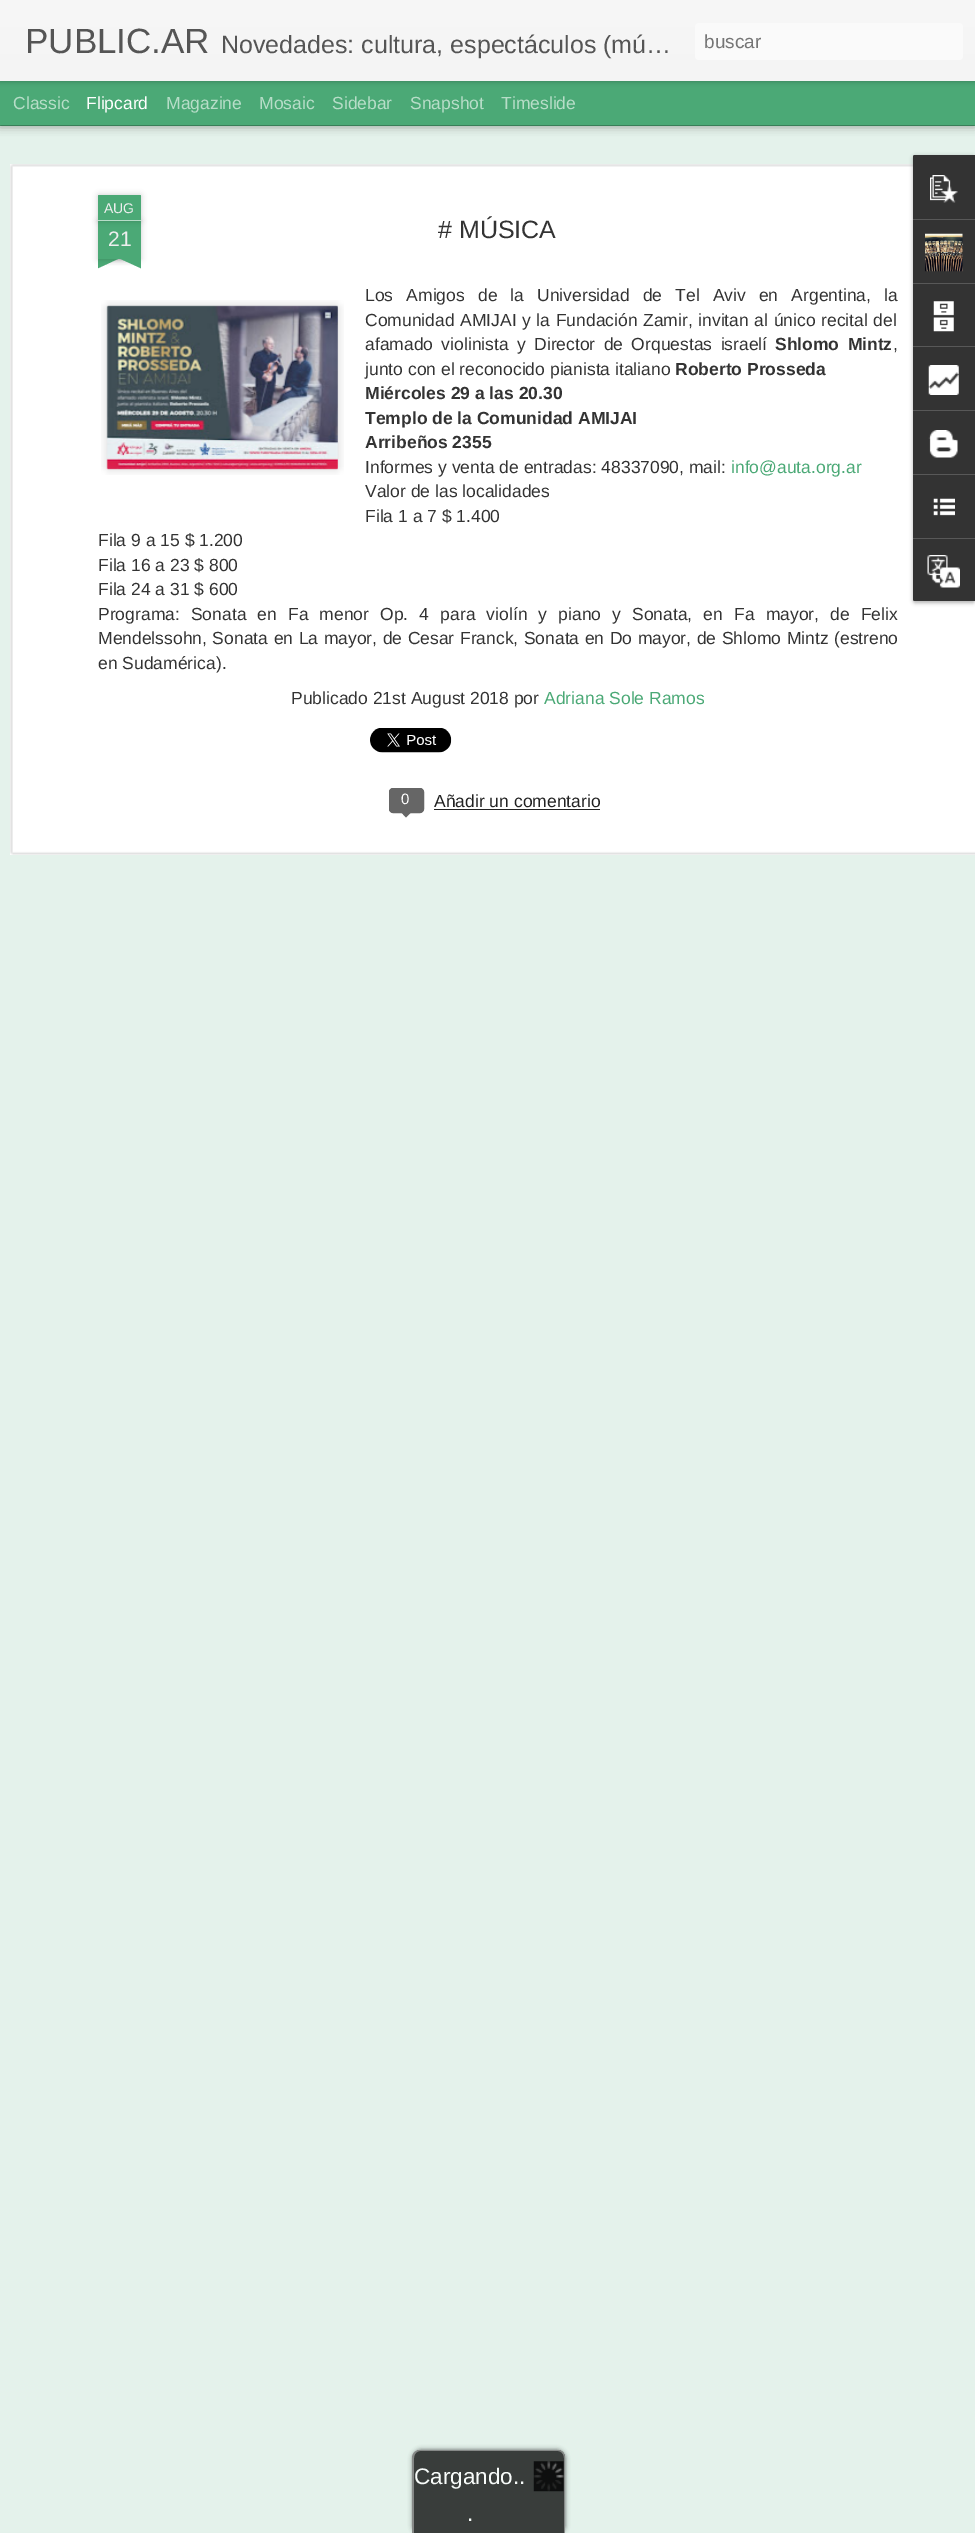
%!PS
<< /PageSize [975 2533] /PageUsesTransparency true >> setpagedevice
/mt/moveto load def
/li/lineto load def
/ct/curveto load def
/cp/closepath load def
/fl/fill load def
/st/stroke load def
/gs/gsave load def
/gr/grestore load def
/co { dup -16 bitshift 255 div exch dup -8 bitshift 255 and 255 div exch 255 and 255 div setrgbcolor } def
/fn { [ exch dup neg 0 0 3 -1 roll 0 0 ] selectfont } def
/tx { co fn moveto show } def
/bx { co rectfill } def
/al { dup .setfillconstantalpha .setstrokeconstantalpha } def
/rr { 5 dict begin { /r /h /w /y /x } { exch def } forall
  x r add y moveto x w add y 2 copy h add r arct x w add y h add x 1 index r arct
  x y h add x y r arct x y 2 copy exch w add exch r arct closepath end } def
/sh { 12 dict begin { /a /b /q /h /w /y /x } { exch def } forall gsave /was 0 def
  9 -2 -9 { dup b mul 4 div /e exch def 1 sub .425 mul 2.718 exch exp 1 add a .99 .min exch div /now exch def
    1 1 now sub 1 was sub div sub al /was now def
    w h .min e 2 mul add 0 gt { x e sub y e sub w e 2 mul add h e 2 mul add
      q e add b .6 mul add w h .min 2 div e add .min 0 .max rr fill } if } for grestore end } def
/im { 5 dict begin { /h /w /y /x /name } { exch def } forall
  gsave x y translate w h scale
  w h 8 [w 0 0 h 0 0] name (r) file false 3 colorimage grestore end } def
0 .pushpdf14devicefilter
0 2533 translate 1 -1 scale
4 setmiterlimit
0 0 975 2533 16#4BA976 bx
0 126 975 2407 16#E4F2EB bx
16#000000 co
0 81 975 44 0 5 .5 sh
0 81 975 44 16#4BA976 bx
16#000000 co
0 0 975 81 0 3 .3 sh
gs 0 0 mt 975 0 li 975 81 li 0 81 li cp clip newpath
<< /ShadingType 2 /ColorSpace /DeviceRGB /Coords [0 0 0 81] /Extend [true true] /Function << /FunctionType 2 /Domain [0 1] /C0 [.969 .969 .969] /C1 [.957 .957 .957] /N 1 >> >> shfill gr
16#FAFAFA co
695 23 268 37 4 rr fl
10 164 965 691 16#FFFFFF bx
(media/1.raw) 10 164 965 691 im
16#000000 co
98 221 43 38 0 3 .2 sh
98 221 43 38 16#4BA976 bx
16#000000 co
98 195 43 26 1 3 .2 sh
16#4BA976 co
99 195 mt 140 195 li 140.5 195 141 195.5 141 196 ct 141 221 li 98 221 li 98 196 li 98 195.5 98.5 195 99 195 ct cp fl
98 220 43 1 16#B7DDC8 bx
gs
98 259 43 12 rectclip
16#000000 co
86 246 63 13 0 3 .2 sh
gr
gs
98 259 43 12 rectclip
16#4BA976 co
87 260 mt 143 234 li 148 245 li 92 271 li cp fl
gr
gs
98 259 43 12 rectclip
16#000000 co
90 246 63 13 0 3 .2 sh
gr
gs
98 259 43 12 rectclip
16#4BA976 co
96 234 mt 152 260 li 147 271 li 90 245 li cp fl
gr
(media/2.raw) 101 300 243 175 im
(media/3.raw) 106 305 232 164 im
(media/4.raw) 370 728 82 25 im
16#666666 co
389.5 788.5 34 24 3.5 rr gs fl gr
st
400 811 mt 412.5 811 li 406 817.5 li cp fl
434 809 166 1 16#222222 bx
16#000000 co
913 156 62 447 2.5 2 .3 sh
16#333333 co
915.5 155 mt 975 155 li 975 601 li 915.5 601 li 914 601 913 600 913 598.5 ct 913 157.5 li 913 156 914 155 915.5 155 ct cp fl
915.5 155 mt 975 155 li 975 219 li 913 219 li 913 157.5 li 913 156 914 155 915.5 155 ct cp fl
(media/5.raw) 930 175 28 28 im
913 219 62 1 16#585858 bx
(media/6.raw) 925 233 38 39 im
913 283 62 1 16#585858 bx
(media/7.raw) 933 301 21 31 im
913 346 62 1 16#585858 bx
(media/8.raw) 928 365 31 30 im
913 410 62 1 16#585858 bx
(media/9.raw) 928 430 30 28 im
913 474 62 1 16#585858 bx
(media/10.raw) 933 498 22 18 im
16#333333 co
913 538 mt 975 538 li 975 601 li 915.5 601 li 914 601 913 600 913 598.5 ct cp fl
913 538 62 1 16#585858 bx
(media/11.raw) 927 555 33 33 im
16#5F6361 co
413 2450 152 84 8 2.5 1 sh
16#393D3B co
421 2450 mt 557 2450 li 561.5 2450 565 2453.5 565 2458 ct 565 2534 li 413 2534 li 413 2458 li 413 2453.5 416.5 2450 421 2450 ct cp fl
16#868987 co
420 2450 mt 558 2450 li 562 2450 565 2453 565 2458 ct 565 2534 li 412 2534 li 412 2458 li 412 2453 416 2450 420 2450 ct cp 420 2451 mt 558 2451 li 561 2451 564 2454 564 2458 ct 564 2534 li 414 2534 li 414 2458 li 414 2454 417 2451 420 2451 ct cp eofill
(media/12.raw) 533 2461 31 31 im
(PUBLIC.AR) 25 53 /LiberationSans-Regular 35 16#555555 tx
(Novedades: cultura, espectáculos \(mú…) 221 53 /LiberationSans-Regular 25 16#555555 tx
(buscar) 704 48 /LiberationSans-Regular 19 16#757575 tx
(Classic) 13 109 /LiberationSans-Regular 17.5 16#B7DDC8 tx
(Flipcard) 86 109 /LiberationSans-Regular 17.5 16#FFFFFF tx
(Magazine) 166 109 /LiberationSans-Regular 17.5 16#B7DDC8 tx
(Mosaic) 259 109 /LiberationSans-Regular 17.5 16#B7DDC8 tx
(Sidebar) 332 109 /LiberationSans-Regular 17.5 16#B7DDC8 tx
(Snapshot) 410 109 /LiberationSans-Regular 17.5 16#B7DDC8 tx
(Timeslide) 501 109 /LiberationSans-Regular 17.5 16#B7DDC8 tx
(AUG) 104 213 /LiberationSans-Regular 14 16#EEEEEE tx
(21) 108 246 /LiberationSans-Regular 21 16#EEEEEE tx
(# MÚSICA) 438 238 /LiberationSans-Regular 25 16#333333 tx
/LiberationSans-Regular 17.5 fn
365 301 mt 8.25 0 32 (Los Amigos de la Universidad de Tel Aviv en Argentina, la) widthshow
365 326 mt .75 0 32 (Comunidad AMIJAI y la Fundación Zamir, invitan al único recital del) widthshow
365 350 mt 3.5 0 32 (afamado violinista y Director de Orquestas israelí) widthshow
/LiberationSans-Bold 17.5 fn
775 350 mt 3.5 0 32 (Shlomo Mintz) widthshow
(,) 893 350 /LiberationSans-Regular 17.5 16#333333 tx
(junto con el reconocido pianista italiano) 365 375 /LiberationSans-Regular 17.5 16#333333 tx
(Roberto Prosseda) 675 375 /LiberationSans-Bold 17.5 16#333333 tx
(Miércoles 29 a las 20.30) 365 399 /LiberationSans-Bold 17.5 16#333333 tx
(Templo de la Comunidad AMIJAI) 365 424 /LiberationSans-Bold 17.5 16#333333 tx
(Arribeños 2355) 365 448 /LiberationSans-Bold 17.5 16#333333 tx
(Informes y venta de entradas: 48337090, mail:) 365 473 /LiberationSans-Regular 17.5 16#333333 tx
(info@auta.org.ar) 731 473 /LiberationSans-Regular 17.5 16#4BA976 tx
(Valor de las localidades) 365 497 /LiberationSans-Regular 17.5 16#333333 tx
(Fila 1 a 7 $ 1.400) 365 522 /LiberationSans-Regular 17.5 16#333333 tx
(Fila 9 a 15 $ 1.200) 98 546 /LiberationSans-Regular 17.5 16#333333 tx
(Fila 16 a 23 $ 800) 98 571 /LiberationSans-Regular 17.5 16#333333 tx
(Fila 24 a 31 $ 600) 98 595 /LiberationSans-Regular 17.5 16#333333 tx
98 620 mt 6.25 0 32 (Programa: Sonata en Fa menor Op. 4 para violín y piano y Sonata, en Fa mayor, de Felix) widthshow
98 644 mt .7 0 32 (Mendelssohn, Sonata en La mayor, de Cesar Franck, Sonata en Do mayor, de Shlomo Mintz \(estreno) widthshow
(en Sudamérica\).) 98 669 /LiberationSans-Regular 17.5 16#333333 tx
(Publicado 21st August 2018 por) 291 704 /LiberationSans-Regular 17.5 16#333333 tx
(Adriana Sole Ramos) 544 704 /LiberationSans-Regular 17.5 16#4BA976 tx
(0) 401 804 /LiberationSans-Regular 15 16#FFFFFF tx
(Añadir un comentario) 434 807 /LiberationSans-Regular 17.5 16#222222 tx
(Cargando..) 414 2484 /LiberationSans-Regular 22.5 16#F8FCFA tx
(.) 467 2521 /LiberationSans-Regular 22.5 16#F8FCFA tx
.poppdf14devicefilter showpage
